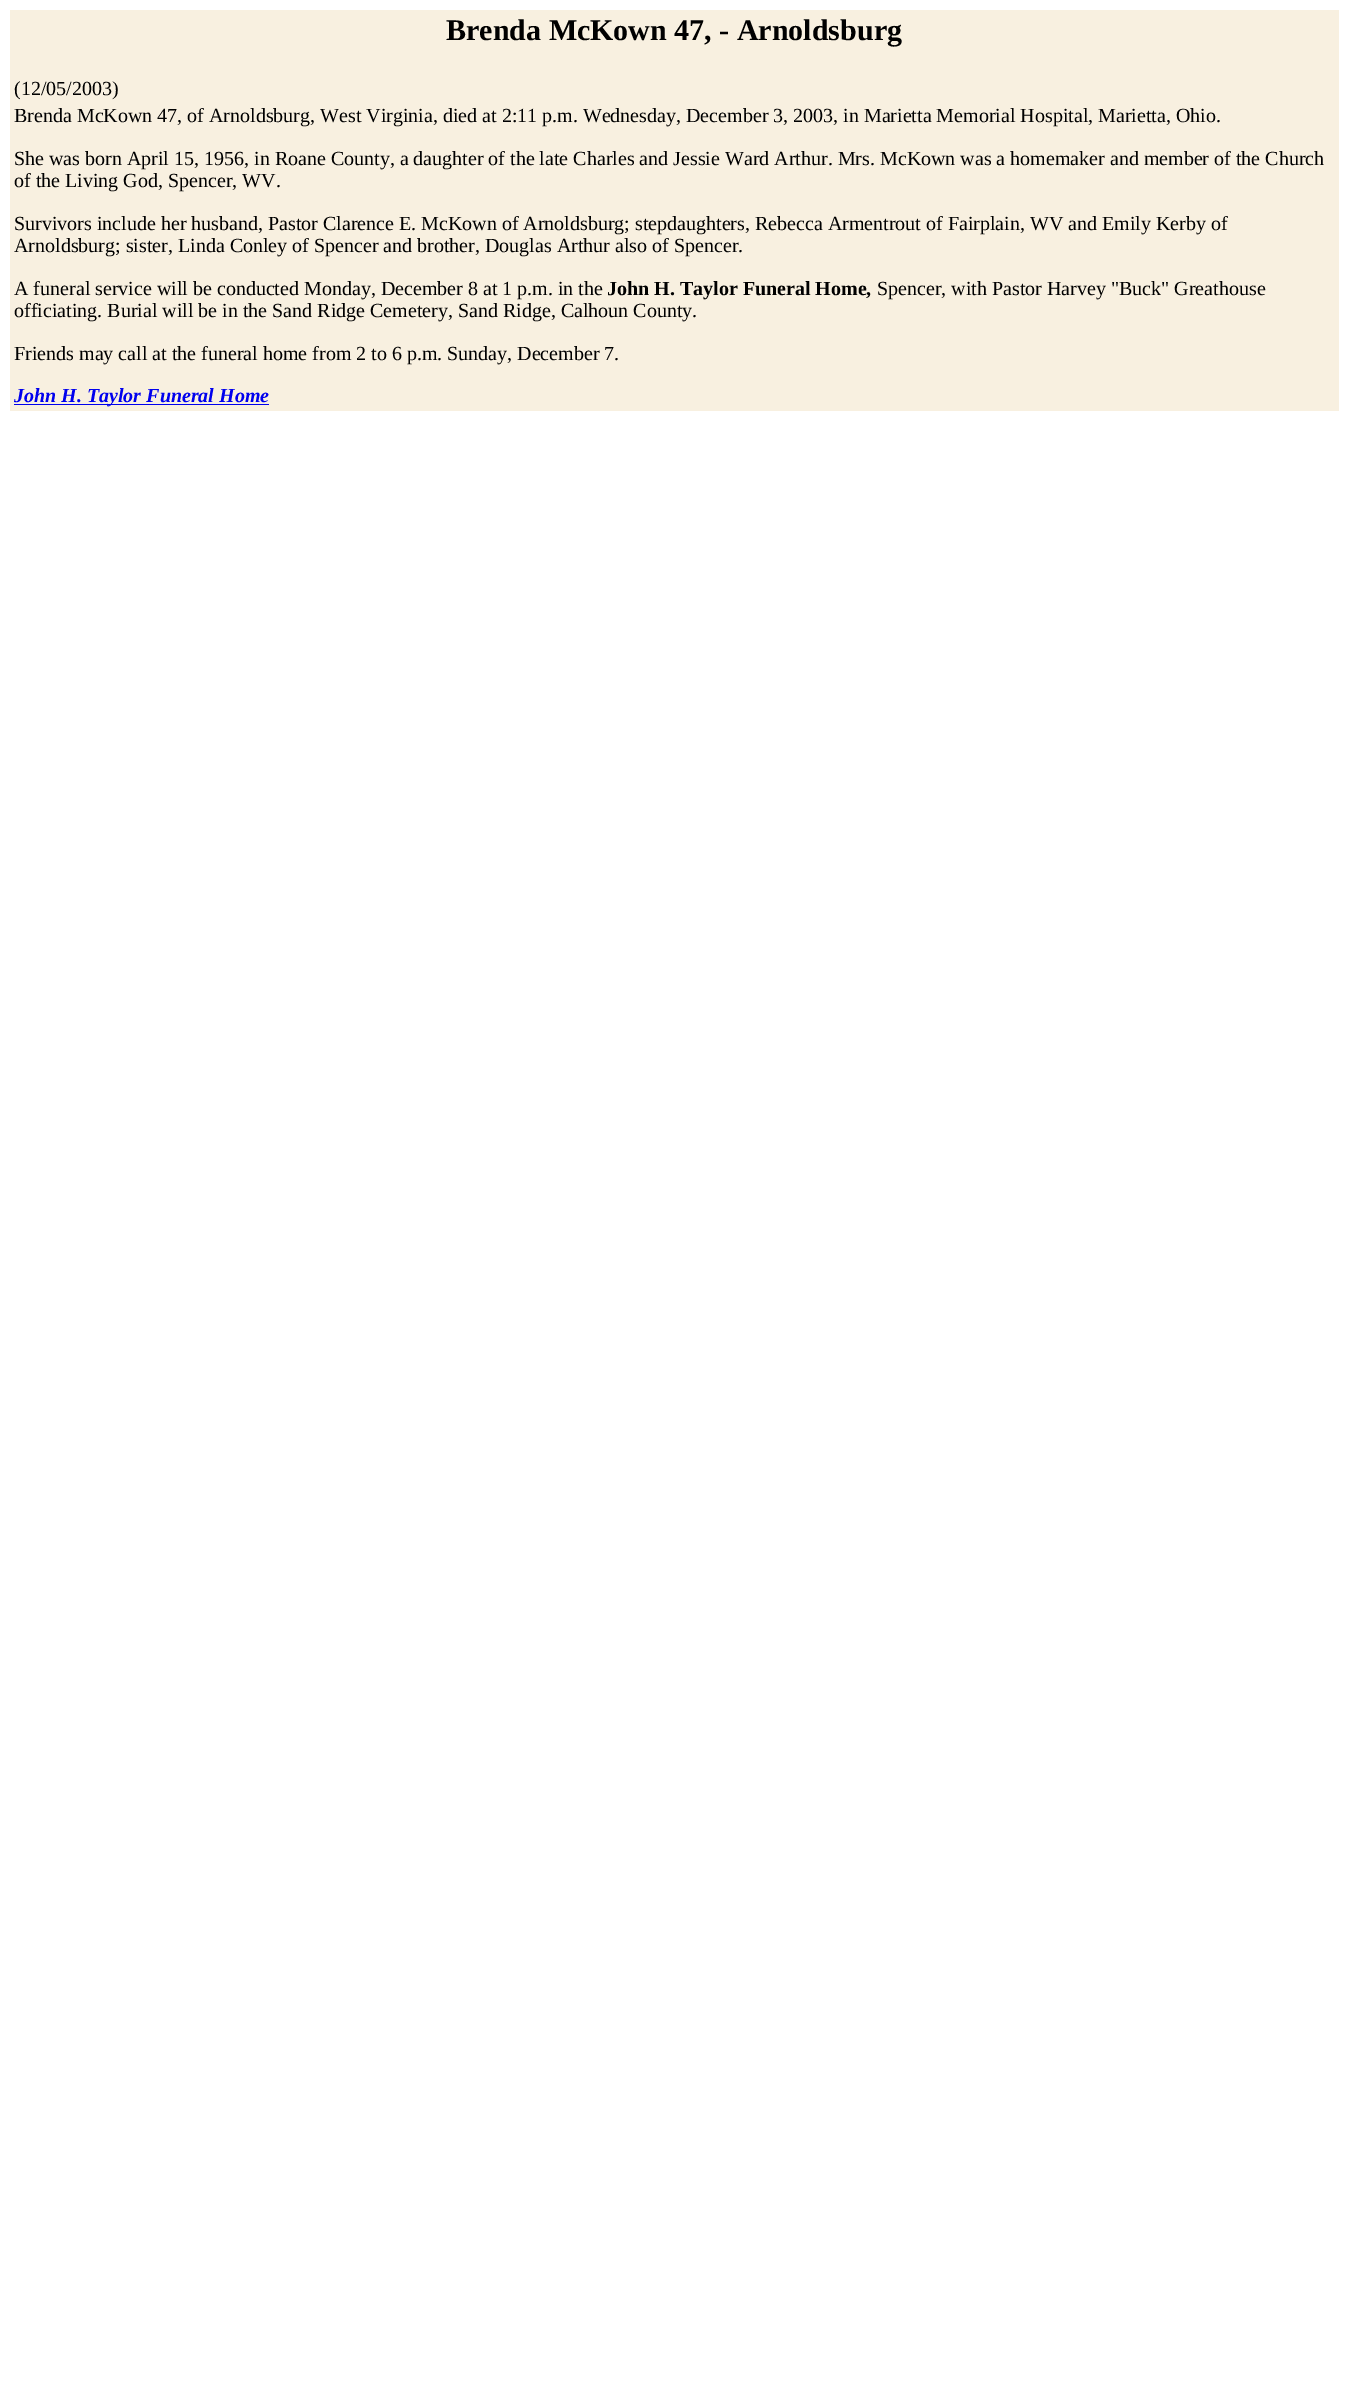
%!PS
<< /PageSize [1348 2387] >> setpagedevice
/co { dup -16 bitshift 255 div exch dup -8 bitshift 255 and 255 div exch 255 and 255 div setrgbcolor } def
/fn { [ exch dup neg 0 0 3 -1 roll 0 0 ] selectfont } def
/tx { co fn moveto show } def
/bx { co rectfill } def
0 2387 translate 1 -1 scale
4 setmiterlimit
0 0 1348 2387 16#FFFFFF bx
10 10 1329 401 16#F8F0E0 bx
14 404 255 1 16#0000EE bx
(Brenda McKown 47, - Arnoldsburg) 446 40 /LiberationSerif-Bold 30 16#000000 tx
(\(12/05/2003\)) 14 95 /LiberationSerif-Regular 20 16#000000 tx
(Brenda McKown 47, of Arnoldsburg, West Virginia, died at 2:11 p.m. Wednesday, December 3, 2003, in Marietta Memorial Hospital, Marietta, Ohio.) 14 122 /LiberationSerif-Regular 20 16#000000 tx
(She was born April 15, 1956, in Roane County, a daughter of the late Charles and Jessie Ward Arthur. Mrs. McKown was a homemaker and member of the Church) 14 165 /LiberationSerif-Regular 20 16#000000 tx
(of the Living God, Spencer, WV.) 14 187 /LiberationSerif-Regular 20 16#000000 tx
(Survivors include her husband, Pastor Clarence E. McKown of Arnoldsburg; stepdaughters, Rebecca Armentrout of Fairplain, WV and Emily Kerby of) 14 230 /LiberationSerif-Regular 20 16#000000 tx
(Arnoldsburg; sister, Linda Conley of Spencer and brother, Douglas Arthur also of Spencer.) 14 252 /LiberationSerif-Regular 20 16#000000 tx
(A funeral service will be conducted Monday, December 8 at 1 p.m. in the) 14 295 /LiberationSerif-Regular 20 16#000000 tx
(John H. Taylor Funeral Home,) 607 295 /LiberationSerif-Bold 20 16#000000 tx
(Spencer, with Pastor Harvey "Buck" Greathouse) 877 295 /LiberationSerif-Regular 20 16#000000 tx
(officiating. Burial will be in the Sand Ridge Cemetery, Sand Ridge, Calhoun County.) 14 317 /LiberationSerif-Regular 20 16#000000 tx
(Friends may call at the funeral home from 2 to 6 p.m. Sunday, December 7.) 14 360 /LiberationSerif-Regular 20 16#000000 tx
(John H. Taylor Funeral Home) 14 402 /LiberationSerif-BoldItalic 20 16#0000EE tx
showpage
